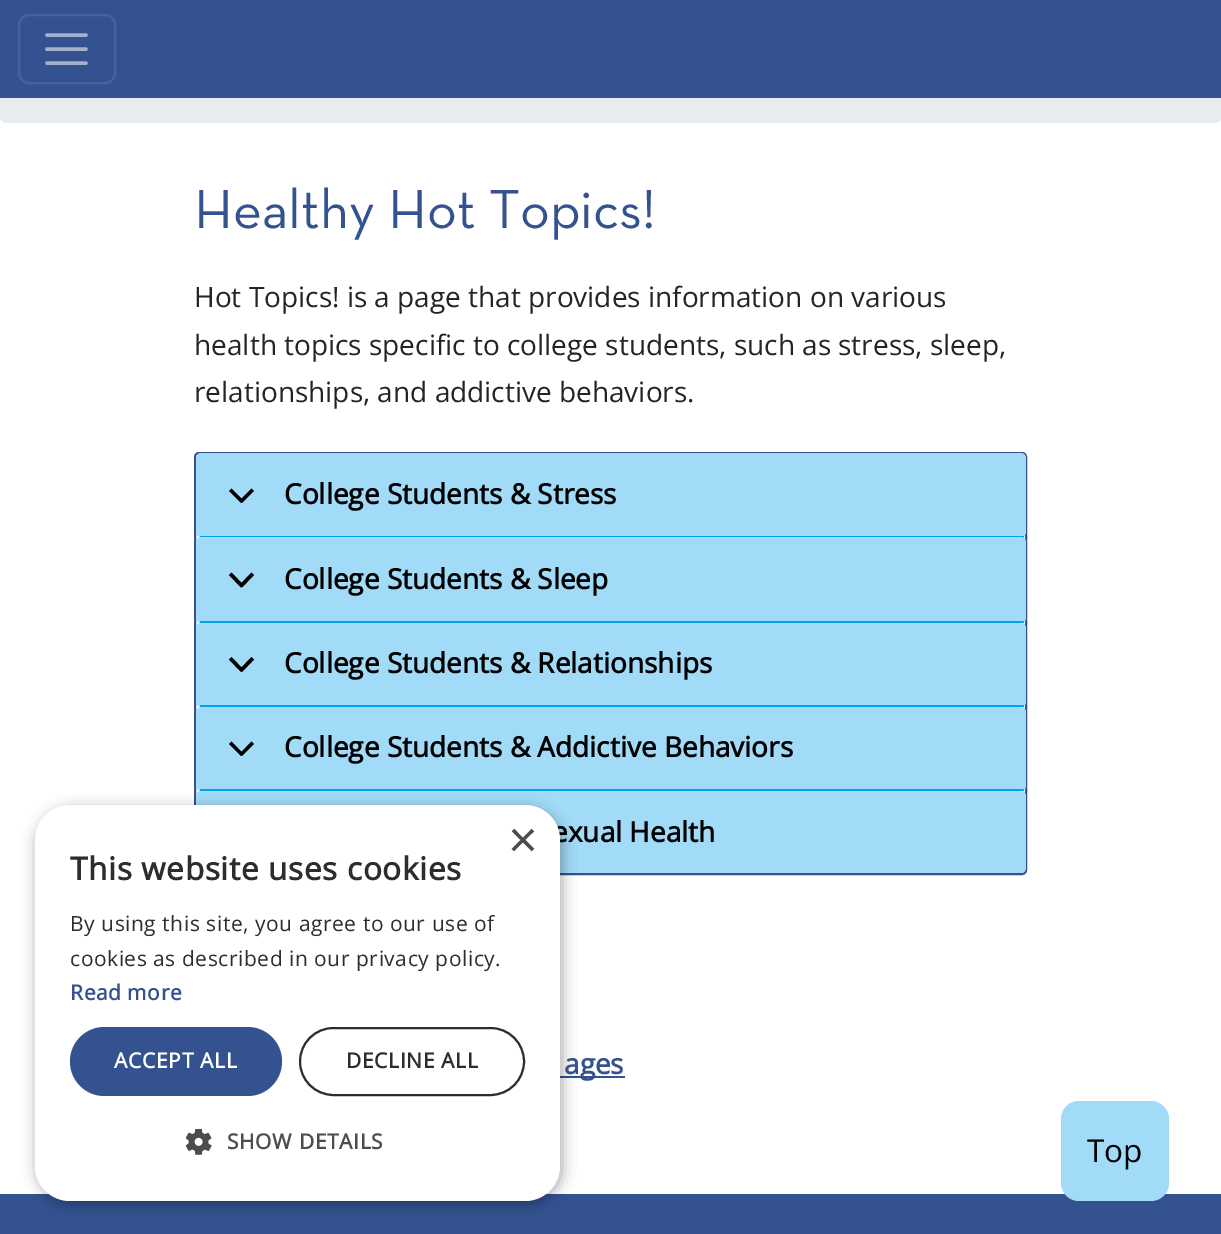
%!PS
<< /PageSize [1221 1234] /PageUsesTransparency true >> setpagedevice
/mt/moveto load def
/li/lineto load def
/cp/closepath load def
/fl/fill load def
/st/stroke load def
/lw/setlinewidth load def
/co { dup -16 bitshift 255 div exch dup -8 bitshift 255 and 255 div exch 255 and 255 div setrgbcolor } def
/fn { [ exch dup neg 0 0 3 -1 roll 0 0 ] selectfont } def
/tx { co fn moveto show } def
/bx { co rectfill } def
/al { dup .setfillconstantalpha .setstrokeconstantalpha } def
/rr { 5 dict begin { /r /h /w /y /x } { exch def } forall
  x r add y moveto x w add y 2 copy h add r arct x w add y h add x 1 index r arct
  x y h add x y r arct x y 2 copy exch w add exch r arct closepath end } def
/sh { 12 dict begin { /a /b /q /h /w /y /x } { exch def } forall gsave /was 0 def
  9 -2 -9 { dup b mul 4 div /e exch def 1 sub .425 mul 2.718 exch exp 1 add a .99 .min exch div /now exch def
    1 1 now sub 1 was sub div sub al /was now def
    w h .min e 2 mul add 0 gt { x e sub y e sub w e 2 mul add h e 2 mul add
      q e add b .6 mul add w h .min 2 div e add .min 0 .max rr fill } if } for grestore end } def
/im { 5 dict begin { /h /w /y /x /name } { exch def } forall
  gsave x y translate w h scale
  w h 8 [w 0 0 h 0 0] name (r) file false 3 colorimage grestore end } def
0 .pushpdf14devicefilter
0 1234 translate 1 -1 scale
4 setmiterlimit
0 0 1221 1234 16#FFFFFF bx
16#E9ECEF co
0 33 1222 90 7 rr fl
0 0 1221 98 16#345290 bx
16#48639B co
2 lw
19 15 96 68 10 rr st
16#A4B1CD co
3.5 lw
1 setlinecap
47 35 mt 86 35 li 47 49 mt 86 49 li 47 63 mt 86 63 li st
16#345290 co
2 lw
0 setlinecap
195 453 831 421 4 rr st
16#A1DBF7 co
196 453 830 84 5 rr fl
200 536 824 2 16#00A4EC bx
16#000000 co
254 491 mt 242 503 li 239.5 500.5 li 251.5 488.5 li cp fl
241 503 mt 229 491 li 231.5 488.5 li 243.5 500.5 li cp fl
16#A1DBF7 co
196 537 830 86 5 rr fl
200 621 824 2 16#00A4EC bx
16#000000 co
254 575 mt 242 587.5 li 239.5 585 li 251.5 572.5 li cp fl
241 587.5 mt 229 575 li 231.5 572.5 li 243.5 585 li cp fl
16#A1DBF7 co
196 623 830 84 5 rr fl
200 705 824 2 16#00A4EC bx
16#000000 co
254 659.5 mt 242 672 li 239.5 669.5 li 251.5 657 li cp fl
241 672 mt 229 659.5 li 231.5 657 li 243.5 669.5 li cp fl
16#A1DBF7 co
196 707 830 84 5 rr fl
200 789 824 2 16#00A4EC bx
16#000000 co
254 744 mt 242 756 li 239.5 754 li 251.5 741.5 li cp fl
241 756 mt 229 744 li 231.5 741.5 li 243.5 754 li cp fl
16#A1DBF7 co
196 791 830 82 5 rr fl
560 1076 65 2 16#345290 bx
0 1194 1221 40 16#345290 bx
16#A1DBF7 co
1061 1101 108 100 18 rr fl
16#000000 co
37 809 525 395 35 7 .35 sh
(Healthy Hot Topics!) 194 228 /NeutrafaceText-Regular 56 16#345290 tx
(Hot Topics! is a page that provides information on various) 194 307 /OpenSans-Regular 28 16#212529 tx
(health topics specific to college students, such as stress, sleep,) 194 355 /OpenSans-Regular 28 16#212529 tx
(relationships, and addictive behaviors.) 194 402 /OpenSans-Regular 28 16#212529 tx
(College Students & Stress) 284 504 /OpenSans-Bold 28 16#000000 tx
(College Students & Sleep) 284 589 /OpenSans-Bold 28 16#000000 tx
(College Students & Relationships) 284 673 /OpenSans-Bold 28 16#000000 tx
(College Students & Addictive Behaviors) 284 757 /OpenSans-Bold 28 16#000000 tx
(exual Health) 552 842 /OpenSans-Bold 28 16#000000 tx
(ages) 564 1074 /OpenSans-Bold 28 16#345290 tx
(Top) 1087 1162 /OpenSans-Regular 31.5 16#000000 tx
16#FFFFFF co
35 805 525 396 35 rr fl
(×) 508 857 /LiberationSans-Regular 51 16#4D4D4D tx
/OpenSans-Bold 31.5 fn
16#2D2D2D co
70 880 mt .7 0 (This website uses cookies) ashow
/OpenSans-Regular 21 fn
70 931 mt .55 0 (By using this site, you agree to our use of) ashow
70 966 mt .55 0 (cookies as described in our privacy policy.) ashow
/OpenSans-Bold 21 fn
16#345290 co
70 1000 mt .55 0 (Read more) ashow
70 1027 212 69 34.5 rr fl
16#FFFFFF co
114 1068 mt .7 0 (ACCEPT ALL) ashow
16#2D2D2D co
300 1028 224 67 33.5 rr st
346 1068 mt .7 0 (DECLINE ALL) ashow
(media/1.raw) 186 1129 26 26 im
16#4D4D4D co
227 1149 mt .7 0 (SHOW DETAILS) ashow
.poppdf14devicefilter showpage
